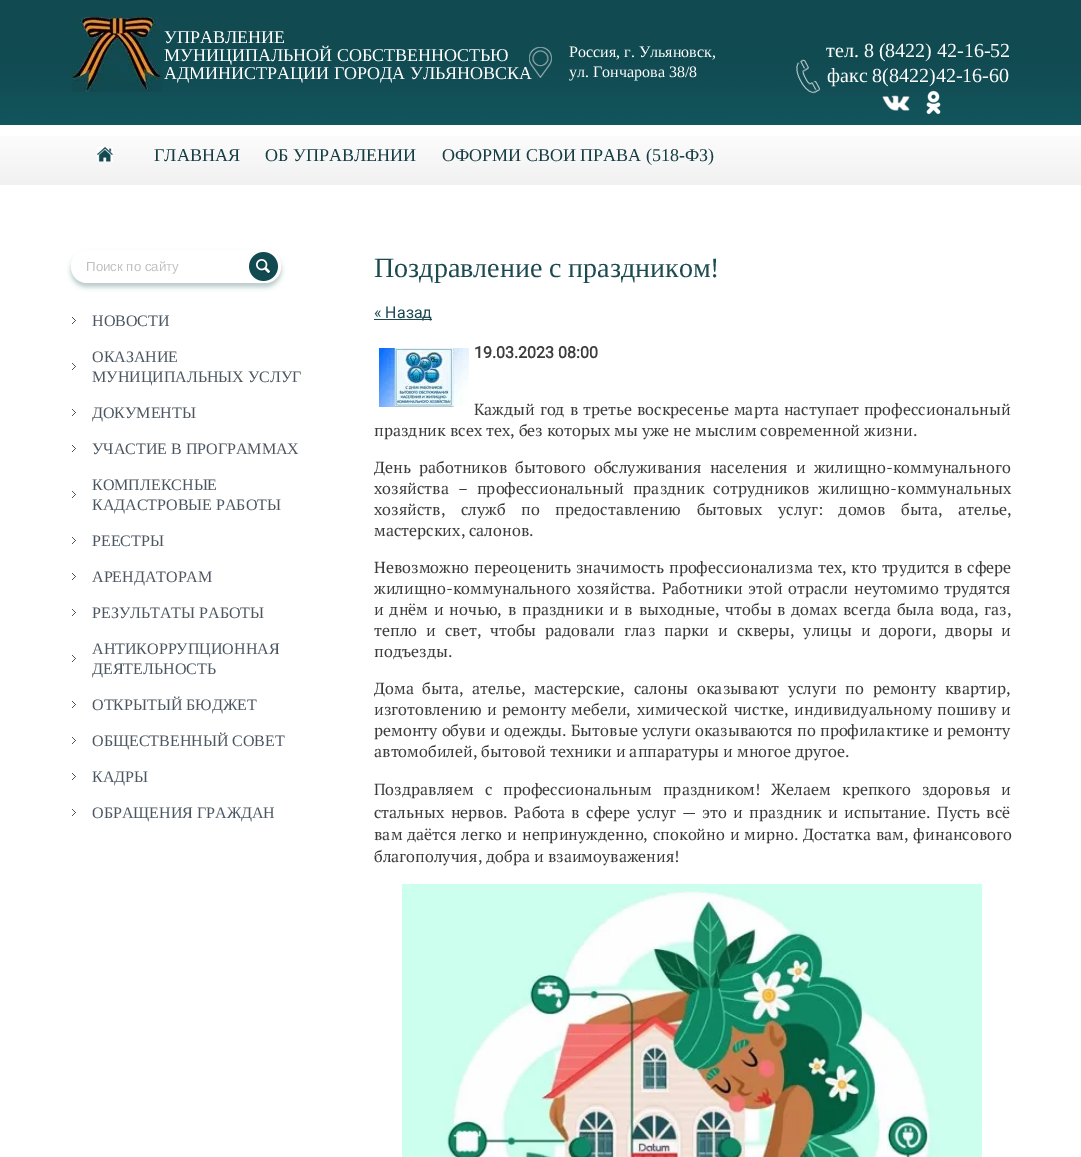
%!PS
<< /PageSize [1081 1157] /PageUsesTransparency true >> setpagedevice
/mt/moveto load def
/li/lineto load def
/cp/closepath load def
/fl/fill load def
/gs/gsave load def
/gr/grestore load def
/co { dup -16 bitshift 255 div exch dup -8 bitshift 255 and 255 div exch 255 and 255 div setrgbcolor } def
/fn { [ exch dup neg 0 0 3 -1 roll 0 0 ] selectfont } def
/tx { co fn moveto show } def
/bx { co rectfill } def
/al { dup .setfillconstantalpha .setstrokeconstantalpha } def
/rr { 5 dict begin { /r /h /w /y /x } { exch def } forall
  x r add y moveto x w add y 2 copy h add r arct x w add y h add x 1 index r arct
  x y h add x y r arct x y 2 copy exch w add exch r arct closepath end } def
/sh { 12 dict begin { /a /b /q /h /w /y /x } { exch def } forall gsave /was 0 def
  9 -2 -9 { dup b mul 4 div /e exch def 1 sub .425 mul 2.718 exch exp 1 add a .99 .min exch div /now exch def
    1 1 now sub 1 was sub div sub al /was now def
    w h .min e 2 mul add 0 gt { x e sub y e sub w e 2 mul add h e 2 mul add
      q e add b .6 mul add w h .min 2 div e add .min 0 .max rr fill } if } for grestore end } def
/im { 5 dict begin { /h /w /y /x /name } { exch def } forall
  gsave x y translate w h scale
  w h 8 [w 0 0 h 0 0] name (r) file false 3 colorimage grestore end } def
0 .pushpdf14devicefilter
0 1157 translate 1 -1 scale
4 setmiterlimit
0 0 1081 1157 16#FFFFFF bx
(media/1.raw) 0 0 1081 125 im
(media/2.raw) 72 17 90 75 im
(media/4.raw) 796 59 24 35 im
(media/5.raw) 882 95 28 16 im
(media/6.raw) 926 90 15 25 im
gs 0 136 mt 1081 136 li 1081 185 li 0 185 li cp clip newpath
<< /ShadingType 2 /ColorSpace /DeviceRGB /Coords [541 125 541 185] /Extend [true true] /Function << /FunctionType 2 /Domain [0 1] /C0 [1 1 1] /C1 [.945 .945 .945] /N 1 >> >> shfill gr
(media/7.raw) 97 147 16 15 im
16#114A51 co
71 254 210 33 16 2.5 .3 sh
16#FFFFFF co
71 250 210 33 16 rr fl
(media/8.raw) 249 252 29 29 im
(media/9.raw) 72 317 4 7 im
(media/9.raw) 72 363 4 7 im
(media/9.raw) 72 409 4 7 im
(media/9.raw) 72 445 4 7 im
(media/9.raw) 72 491 4 7 im
(media/9.raw) 72 537 4 7 im
(media/9.raw) 72 573 4 7 im
(media/9.raw) 72 609 4 7 im
(media/9.raw) 72 655 4 7 im
(media/9.raw) 72 701 4 7 im
(media/9.raw) 72 737 4 7 im
(media/9.raw) 72 773 4 7 im
(media/9.raw) 72 809 4 7 im
374 319 58 1 16#1C4A51 bx
(media/10.raw) 379 348 90 59 im
(media/11.raw) 402 884 580 273 im
(УПРАВЛЕНИЕ) 164 43 /LiberationSerif-Regular 18 16#FFFFFF tx
(МУНИЦИПАЛЬНОЙ СОБСТВЕННОСТЬЮ) 164 61 /LiberationSerif-Regular 18 16#FFFFFF tx
(АДМИНИСТРАЦИИ ГОРОДА УЛЬЯНОВСКА) 164 79 /LiberationSerif-Regular 18 16#FFFFFF tx
(media/3.raw) 529 47 23 31 im
(Россия, г. Ульяновск,) 569 57 /LiberationSerif-Regular 16 16#FFFFFF tx
(ул. Гончарова 38/8) 569 77 /LiberationSerif-Regular 16 16#FFFFFF tx
(тел. 8 \(8422\) 42-16-52) 826 57 /LiberationSerif-Regular 20 16#FFFFFF tx
(факс 8\(8422\)42-16-60) 827 82 /LiberationSerif-Regular 20 16#FFFFFF tx
(ГЛАВНАЯ) 154 161 /LiberationSerif-Regular 18 16#163D43 tx
(ОБ УПРАВЛЕНИИ) 265 161 /LiberationSerif-Regular 18 16#163D43 tx
(ОФОРМИ СВОИ ПРАВА \(518-ФЗ\)) 442 161 /LiberationSerif-Regular 18 16#163D43 tx
(Поиск по сайту) 86 271 /LiberationSans-Regular 13.25 16#C1C1C1 tx
(НОВОСТИ) 92 326 /LiberationSerif-Regular 16 16#4B5661 tx
(ОКАЗАНИЕ) 92 362 /LiberationSerif-Regular 16 16#4B5661 tx
(МУНИЦИПАЛЬНЫХ УСЛУГ) 92 382 /LiberationSerif-Regular 16 16#4B5661 tx
(ДОКУМЕНТЫ) 92 418 /LiberationSerif-Regular 16 16#4B5661 tx
(УЧАСТИЕ В ПРОГРАММАХ) 92 454 /LiberationSerif-Regular 16 16#4B5661 tx
(КОМПЛЕКСНЫЕ) 92 490 /LiberationSerif-Regular 16 16#4B5661 tx
(КАДАСТРОВЫЕ РАБОТЫ) 92 510 /LiberationSerif-Regular 16 16#4B5661 tx
(РЕЕСТРЫ) 92 546 /LiberationSerif-Regular 16 16#4B5661 tx
(АРЕНДАТОРАМ) 92 582 /LiberationSerif-Regular 16 16#4B5661 tx
(РЕЗУЛЬТАТЫ РАБОТЫ) 92 618 /LiberationSerif-Regular 16 16#4B5661 tx
(АНТИКОРРУПЦИОННАЯ) 92 654 /LiberationSerif-Regular 16 16#4B5661 tx
(ДЕЯТЕЛЬНОСТЬ) 92 674 /LiberationSerif-Regular 16 16#4B5661 tx
(ОТКРЫТЫЙ БЮДЖЕТ) 92 710 /LiberationSerif-Regular 16 16#4B5661 tx
(ОБЩЕСТВЕННЫЙ СОВЕТ) 92 746 /LiberationSerif-Regular 16 16#4B5661 tx
(КАДРЫ) 92 782 /LiberationSerif-Regular 16 16#4B5661 tx
(ОБРАЩЕНИЯ ГРАЖДАН) 92 818 /LiberationSerif-Regular 16 16#4B5661 tx
(Поздравление с праздником!) 374 277 /LiberationSerif-Regular 28 16#1C4A51 tx
(« Назад) 374 318 /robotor-Regular 16 16#1C4A51 tx
(19.03.2023 08:00) 474 358 /robotor-Bold 16 16#3C3C3C tx
/PTSerif-Regular 16 fn
474 415 mt 1 0 32 (Каждый год в третье воскресенье марта наступает профессиональный) widthshow
(праздник всех тех, без которых мы уже не мыслим современной жизни.) 374 436 /PTSerif-Regular 16 16#3C3C3C tx
374 473 mt 4.25 0 32 (День работников бытового обслуживания населения и жилищно-коммунального) widthshow
374 494 mt 5 0 32 (хозяйства – профессиональный праздник сотрудников жилищно-коммунальных) widthshow
374 515 mt 11.75 0 32 (хозяйств, служб по предоставлению бытовых услуг: домов быта, ателье,) widthshow
(мастерских, салонов.) 374 536 /PTSerif-Regular 16 16#3C3C3C tx
374 573 mt .75 0 32 (Невозможно переоценить значимость профессионализма тех, кто трудится в сфере) widthshow
374 594 mt 1.75 0 32 (жилищно-коммунального хозяйства. Работники этой отрасли неутомимо трудятся) widthshow
374 615 mt 1.75 0 32 (и днём и ночью, в праздники и в выходные, чтобы в домах всегда была вода, газ,) widthshow
374 636 mt 4.9 0 32 (тепло и свет, чтобы радовали глаз парки и скверы, улицы и дороги, дворы и) widthshow
(подъезды.) 374 657 /PTSerif-Regular 16 16#3C3C3C tx
374 694 mt 4.75 0 32 (Дома быта, ателье, мастерские, салоны оказывают услуги по ремонту квартир,) widthshow
374 715 mt 1.75 0 32 (изготовлению и ремонту мебели, химической чистке, индивидуальному пошиву и) widthshow
374 736 mt .25 0 32 (ремонту обуви и одежды. Бытовые услуги оказываются по профилактике и ремонту) widthshow
(автомобилей, бытовой техники и аппаратуры и многое другое.) 374 757 /PTSerif-Regular 16 16#3C3C3C tx
374 795 mt 7 0 32 (Поздравляем с профессиональным праздником! Желаем крепкого здоровья и) widthshow
374 818 mt 2.4 0 32 (стальных нервов. Работа в сфере услуг — это и праздник и испытание. Пусть всё) widthshow
374 840 mt 1 0 32 (вам даётся легко и непринужденно, спокойно и мирно. Достатка вам, финансового) widthshow
(благополучия, добра и взаимоуважения!) 374 862 /PTSerif-Regular 16 16#3C3C3C tx
.poppdf14devicefilter showpage
